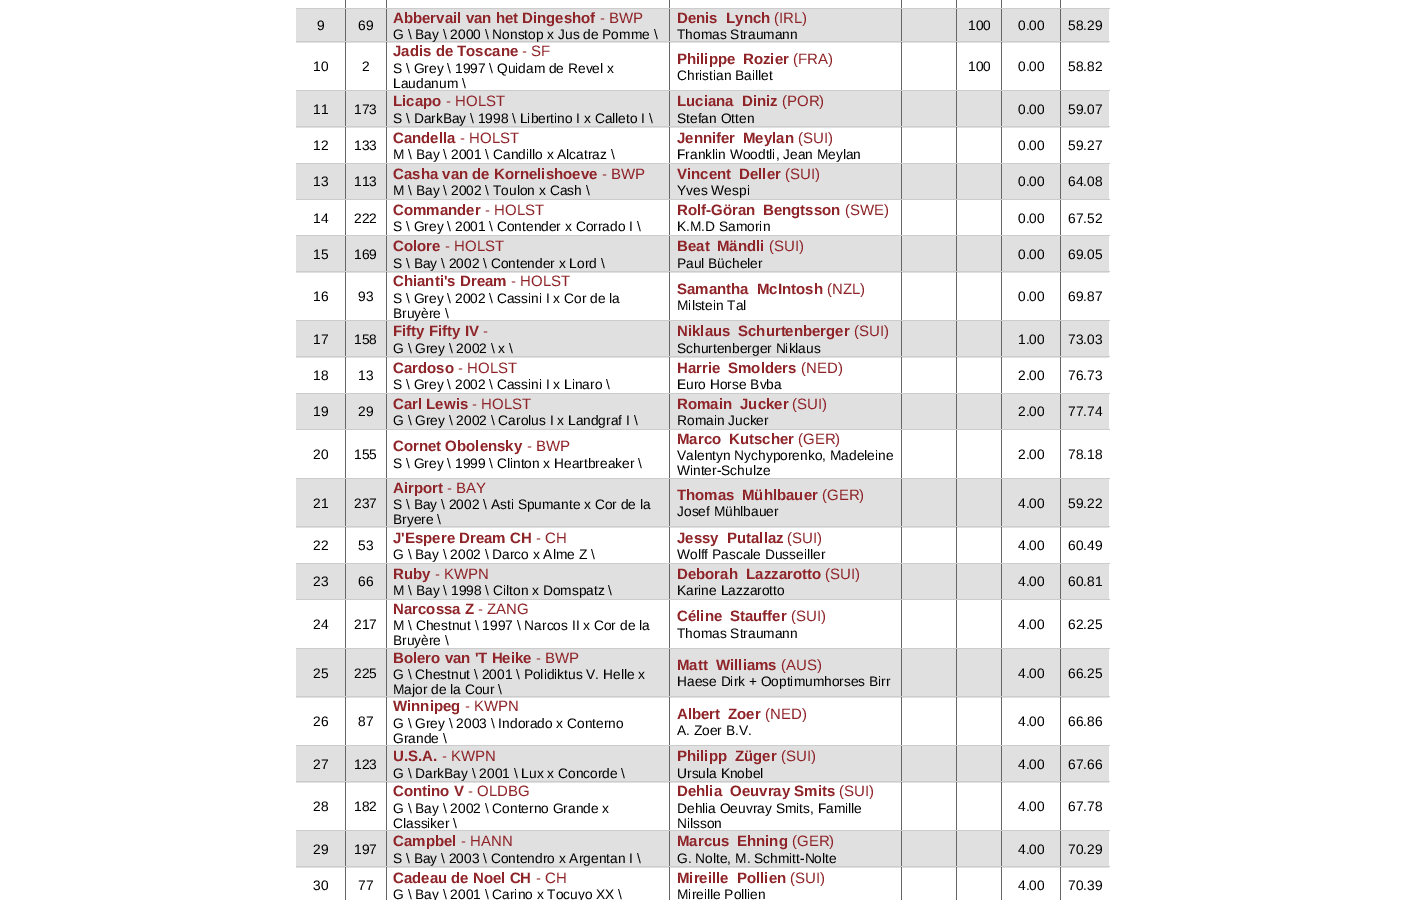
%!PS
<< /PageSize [1405 900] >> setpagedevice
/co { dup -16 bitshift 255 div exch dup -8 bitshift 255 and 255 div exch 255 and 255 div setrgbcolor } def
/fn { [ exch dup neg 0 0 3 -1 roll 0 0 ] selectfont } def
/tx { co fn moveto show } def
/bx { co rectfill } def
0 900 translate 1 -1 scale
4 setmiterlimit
0 0 1405 900 16#FFFFFF bx
296 9 813 34 16#E0E0E0 bx
296 91 813 37 16#E0E0E0 bx
296 164 813 35 16#E0E0E0 bx
296 236 813 37 16#E0E0E0 bx
296 321 813 37 16#E0E0E0 bx
296 394 813 35 16#E0E0E0 bx
296 479 813 49 16#E0E0E0 bx
296 564 813 35 16#E0E0E0 bx
296 649 813 49 16#E0E0E0 bx
296 746 813 37 16#E0E0E0 bx
296 831 813 37 16#E0E0E0 bx
345 0 1 900 16#666666 bx
386 0 1 900 16#666666 bx
669 0 1 900 16#666666 bx
901 0 1 900 16#666666 bx
956 0 1 900 16#666666 bx
1001 0 1 900 16#666666 bx
1060 0 1 900 16#666666 bx
296 8 814 1 16#CCCCCC bx
296 41 814 1 16#CCCCCC bx
296 90 814 1 16#CCCCCC bx
296 126 814 1 16#CCCCCC bx
296 163 814 1 16#CCCCCC bx
296 199 814 1 16#CCCCCC bx
296 235 814 1 16#CCCCCC bx
296 271 814 1 16#CCCCCC bx
296 320 814 1 16#CCCCCC bx
296 356 814 1 16#CCCCCC bx
296 393 814 1 16#CCCCCC bx
296 429 814 1 16#CCCCCC bx
296 478 814 1 16#CCCCCC bx
296 526 814 1 16#CCCCCC bx
296 563 814 1 16#CCCCCC bx
296 599 814 1 16#CCCCCC bx
296 648 814 1 16#CCCCCC bx
296 696 814 1 16#CCCCCC bx
296 745 814 1 16#CCCCCC bx
296 781 814 1 16#CCCCCC bx
296 830 814 1 16#CCCCCC bx
296 866 814 1 16#CCCCCC bx
(9) 317 30 /LiberationSans-Regular 13.75 16#000000 tx
(69) 358 30 /LiberationSans-Regular 13.75 16#000000 tx
(Abbervail van het Dingeshof) 393 23 /LiberationSans-Bold 15 16#8E2328 tx
(- BWP) 600 23 /LiberationSans-Regular 15 16#8E2328 tx
(G \\ Bay \\ 2000 \\ Nonstop x Jus de Pomme \\) 393 39 /LiberationSans-Regular 13.75 16#000000 tx
(Denis) 677 23 /LiberationSans-Bold 15 16#8E2328 tx
(Lynch) 726 23 /LiberationSans-Bold 15 16#8E2328 tx
(\(IRL\)) 774 23 /LiberationSans-Regular 15 16#8E2328 tx
(Thomas Straumann) 677 39 /LiberationSans-Regular 13.75 16#000000 tx
(100) 968 30 /LiberationSans-Regular 13.75 16#000000 tx
(0.00) 1018 30 /LiberationSans-Regular 13.75 16#000000 tx
(58.29) 1068 30 /LiberationSans-Regular 13.75 16#000000 tx
(10) 313 71 /LiberationSans-Regular 13.75 16#000000 tx
(2) 362 71 /LiberationSans-Regular 13.75 16#000000 tx
(Jadis de Toscane) 393 56 /LiberationSans-Bold 15 16#8E2328 tx
(- SF) 522 56 /LiberationSans-Regular 15 16#8E2328 tx
(S \\ Grey \\ 1997 \\ Quidam de Revel x) 393 73 /LiberationSans-Regular 13.75 16#000000 tx
(Laudanum \\) 393 88 /LiberationSans-Regular 13.75 16#000000 tx
(Philippe) 677 64 /LiberationSans-Bold 15 16#8E2328 tx
(Rozier) 743 64 /LiberationSans-Bold 15 16#8E2328 tx
(\(FRA\)) 793 64 /LiberationSans-Regular 15 16#8E2328 tx
(Christian Baillet) 677 80 /LiberationSans-Regular 13.75 16#000000 tx
(100) 968 71 /LiberationSans-Regular 13.75 16#000000 tx
(0.00) 1018 71 /LiberationSans-Regular 13.75 16#000000 tx
(58.82) 1068 71 /LiberationSans-Regular 13.75 16#000000 tx
(11) 313 114 /LiberationSans-Regular 13.75 16#000000 tx
(173) 354 114 /LiberationSans-Regular 13.75 16#000000 tx
(Licapo) 393 106 /LiberationSans-Bold 15 16#8E2328 tx
(- HOLST) 446 106 /LiberationSans-Regular 15 16#8E2328 tx
(S \\ DarkBay \\ 1998 \\ Libertino I x Calleto I \\) 393 123 /LiberationSans-Regular 13.75 16#000000 tx
(Luciana) 677 106 /LiberationSans-Bold 15 16#8E2328 tx
(Diniz) 742 106 /LiberationSans-Bold 15 16#8E2328 tx
(\(POR\)) 782 106 /LiberationSans-Regular 15 16#8E2328 tx
(Stefan Otten) 677 123 /LiberationSans-Regular 13.75 16#000000 tx
(0.00) 1018 114 /LiberationSans-Regular 13.75 16#000000 tx
(59.07) 1068 114 /LiberationSans-Regular 13.75 16#000000 tx
(12) 313 150 /LiberationSans-Regular 13.75 16#000000 tx
(133) 354 150 /LiberationSans-Regular 13.75 16#000000 tx
(Candella) 393 143 /LiberationSans-Bold 15 16#8E2328 tx
(- HOLST) 460 143 /LiberationSans-Regular 15 16#8E2328 tx
(M \\ Bay \\ 2001 \\ Candillo x Alcatraz \\) 393 159 /LiberationSans-Regular 13.75 16#000000 tx
(Jennifer) 677 143 /LiberationSans-Bold 15 16#8E2328 tx
(Meylan) 743 143 /LiberationSans-Bold 15 16#8E2328 tx
(\(SUI\)) 798 143 /LiberationSans-Regular 15 16#8E2328 tx
(Franklin Woodtli, Jean Meylan) 677 159 /LiberationSans-Regular 13.75 16#000000 tx
(0.00) 1018 150 /LiberationSans-Regular 13.75 16#000000 tx
(59.27) 1068 150 /LiberationSans-Regular 13.75 16#000000 tx
(13) 313 186 /LiberationSans-Regular 13.75 16#000000 tx
(113) 354 186 /LiberationSans-Regular 13.75 16#000000 tx
(Casha van de Kornelishoeve) 393 179 /LiberationSans-Bold 15 16#8E2328 tx
(- BWP) 602 179 /LiberationSans-Regular 15 16#8E2328 tx
(M \\ Bay \\ 2002 \\ Toulon x Cash \\) 393 195 /LiberationSans-Regular 13.75 16#000000 tx
(Vincent) 677 179 /LiberationSans-Bold 15 16#8E2328 tx
(Deller) 739 179 /LiberationSans-Bold 15 16#8E2328 tx
(\(SUI\)) 785 179 /LiberationSans-Regular 15 16#8E2328 tx
(Yves Wespi) 677 195 /LiberationSans-Regular 13.75 16#000000 tx
(0.00) 1018 186 /LiberationSans-Regular 13.75 16#000000 tx
(64.08) 1068 186 /LiberationSans-Regular 13.75 16#000000 tx
(14) 313 223 /LiberationSans-Regular 13.75 16#000000 tx
(222) 354 223 /LiberationSans-Regular 13.75 16#000000 tx
(Commander) 393 215 /LiberationSans-Bold 15 16#8E2328 tx
(- HOLST) 485 215 /LiberationSans-Regular 15 16#8E2328 tx
(S \\ Grey \\ 2001 \\ Contender x Corrado I \\) 393 231 /LiberationSans-Regular 13.75 16#000000 tx
(Rolf-Göran) 677 215 /LiberationSans-Bold 15 16#8E2328 tx
(Bengtsson) 763 215 /LiberationSans-Bold 15 16#8E2328 tx
(\(SWE\)) 845 215 /LiberationSans-Regular 15 16#8E2328 tx
(K.M.D Samorin) 677 231 /LiberationSans-Regular 13.75 16#000000 tx
(0.00) 1018 223 /LiberationSans-Regular 13.75 16#000000 tx
(67.52) 1068 223 /LiberationSans-Regular 13.75 16#000000 tx
(15) 313 259 /LiberationSans-Regular 13.75 16#000000 tx
(169) 354 259 /LiberationSans-Regular 13.75 16#000000 tx
(Colore) 393 251 /LiberationSans-Bold 15 16#8E2328 tx
(- HOLST) 445 251 /LiberationSans-Regular 15 16#8E2328 tx
(S \\ Bay \\ 2002 \\ Contender x Lord \\) 393 268 /LiberationSans-Regular 13.75 16#000000 tx
(Beat) 677 251 /LiberationSans-Bold 15 16#8E2328 tx
(Mändli) 717 251 /LiberationSans-Bold 15 16#8E2328 tx
(\(SUI\)) 769 251 /LiberationSans-Regular 15 16#8E2328 tx
(Paul Bücheler) 677 268 /LiberationSans-Regular 13.75 16#000000 tx
(0.00) 1018 259 /LiberationSans-Regular 13.75 16#000000 tx
(69.05) 1068 259 /LiberationSans-Regular 13.75 16#000000 tx
(16) 313 301 /LiberationSans-Regular 13.75 16#000000 tx
(93) 358 301 /LiberationSans-Regular 13.75 16#000000 tx
(Chianti's Dream) 393 286 /LiberationSans-Bold 15 16#8E2328 tx
(- HOLST) 511 286 /LiberationSans-Regular 15 16#8E2328 tx
(S \\ Grey \\ 2002 \\ Cassini I x Cor de la) 393 303 /LiberationSans-Regular 13.75 16#000000 tx
(Bruyère \\) 393 318 /LiberationSans-Regular 13.75 16#000000 tx
(Samantha) 677 294 /LiberationSans-Bold 15 16#8E2328 tx
(McIntosh) 757 294 /LiberationSans-Bold 15 16#8E2328 tx
(\(NZL\)) 827 294 /LiberationSans-Regular 15 16#8E2328 tx
(Milstein Tal) 677 310 /LiberationSans-Regular 13.75 16#000000 tx
(0.00) 1018 301 /LiberationSans-Regular 13.75 16#000000 tx
(69.87) 1068 301 /LiberationSans-Regular 13.75 16#000000 tx
(17) 313 344 /LiberationSans-Regular 13.75 16#000000 tx
(158) 354 344 /LiberationSans-Regular 13.75 16#000000 tx
(Fifty Fifty IV) 393 336 /LiberationSans-Bold 15 16#8E2328 tx
(-) 483 336 /LiberationSans-Regular 15 16#8E2328 tx
(G \\ Grey \\ 2002 \\ x \\) 393 353 /LiberationSans-Regular 13.75 16#000000 tx
(Niklaus) 677 336 /LiberationSans-Bold 15 16#8E2328 tx
(Schurtenberger) 738 336 /LiberationSans-Bold 15 16#8E2328 tx
(\(SUI\)) 854 336 /LiberationSans-Regular 15 16#8E2328 tx
(Schurtenberger Niklaus) 677 353 /LiberationSans-Regular 13.75 16#000000 tx
(1.00) 1018 344 /LiberationSans-Regular 13.75 16#000000 tx
(73.03) 1068 344 /LiberationSans-Regular 13.75 16#000000 tx
(18) 313 380 /LiberationSans-Regular 13.75 16#000000 tx
(13) 358 380 /LiberationSans-Regular 13.75 16#000000 tx
(Cardoso) 393 373 /LiberationSans-Bold 15 16#8E2328 tx
(- HOLST) 458 373 /LiberationSans-Regular 15 16#8E2328 tx
(S \\ Grey \\ 2002 \\ Cassini I x Linaro \\) 393 389 /LiberationSans-Regular 13.75 16#000000 tx
(Harrie) 677 373 /LiberationSans-Bold 15 16#8E2328 tx
(Smolders) 728 373 /LiberationSans-Bold 15 16#8E2328 tx
(\(NED\)) 801 373 /LiberationSans-Regular 15 16#8E2328 tx
(Euro Horse Bvba) 677 389 /LiberationSans-Regular 13.75 16#000000 tx
(2.00) 1018 380 /LiberationSans-Regular 13.75 16#000000 tx
(76.73) 1068 380 /LiberationSans-Regular 13.75 16#000000 tx
(19) 313 416 /LiberationSans-Regular 13.75 16#000000 tx
(29) 358 416 /LiberationSans-Regular 13.75 16#000000 tx
(Carl Lewis) 393 409 /LiberationSans-Bold 15 16#8E2328 tx
(- HOLST) 472 409 /LiberationSans-Regular 15 16#8E2328 tx
(G \\ Grey \\ 2002 \\ Carolus I x Landgraf I \\) 393 425 /LiberationSans-Regular 13.75 16#000000 tx
(Romain) 677 409 /LiberationSans-Bold 15 16#8E2328 tx
(Jucker) 740 409 /LiberationSans-Bold 15 16#8E2328 tx
(\(SUI\)) 792 409 /LiberationSans-Regular 15 16#8E2328 tx
(Romain Jucker) 677 425 /LiberationSans-Regular 13.75 16#000000 tx
(2.00) 1018 416 /LiberationSans-Regular 13.75 16#000000 tx
(77.74) 1068 416 /LiberationSans-Regular 13.75 16#000000 tx
(20) 313 459 /LiberationSans-Regular 13.75 16#000000 tx
(155) 354 459 /LiberationSans-Regular 13.75 16#000000 tx
(Cornet Obolensky) 393 451 /LiberationSans-Bold 15 16#8E2328 tx
(- BWP) 527 451 /LiberationSans-Regular 15 16#8E2328 tx
(S \\ Grey \\ 1999 \\ Clinton x Heartbreaker \\) 393 468 /LiberationSans-Regular 13.75 16#000000 tx
(Marco) 677 444 /LiberationSans-Bold 15 16#8E2328 tx
(Kutscher) 729 444 /LiberationSans-Bold 15 16#8E2328 tx
(\(GER\)) 798 444 /LiberationSans-Regular 15 16#8E2328 tx
(Valentyn Nychyporenko, Madeleine) 677 460 /LiberationSans-Regular 13.75 16#000000 tx
(Winter-Schulze) 677 475 /LiberationSans-Regular 13.75 16#000000 tx
(2.00) 1018 459 /LiberationSans-Regular 13.75 16#000000 tx
(78.18) 1068 459 /LiberationSans-Regular 13.75 16#000000 tx
(21) 313 508 /LiberationSans-Regular 13.75 16#000000 tx
(237) 354 508 /LiberationSans-Regular 13.75 16#000000 tx
(Airport) 393 493 /LiberationSans-Bold 15 16#8E2328 tx
(- BAY) 447 493 /LiberationSans-Regular 15 16#8E2328 tx
(S \\ Bay \\ 2002 \\ Asti Spumante x Cor de la) 393 509 /LiberationSans-Regular 13.75 16#000000 tx
(Bryere \\) 393 524 /LiberationSans-Regular 13.75 16#000000 tx
(Thomas) 677 500 /LiberationSans-Bold 15 16#8E2328 tx
(Mühlbauer) 742 500 /LiberationSans-Bold 15 16#8E2328 tx
(\(GER\)) 822 500 /LiberationSans-Regular 15 16#8E2328 tx
(Josef Mühlbauer) 677 516 /LiberationSans-Regular 13.75 16#000000 tx
(4.00) 1018 508 /LiberationSans-Regular 13.75 16#000000 tx
(59.22) 1068 508 /LiberationSans-Regular 13.75 16#000000 tx
(22) 313 550 /LiberationSans-Regular 13.75 16#000000 tx
(53) 358 550 /LiberationSans-Regular 13.75 16#000000 tx
(J'Espere Dream CH) 393 543 /LiberationSans-Bold 15 16#8E2328 tx
(- CH) 536 543 /LiberationSans-Regular 15 16#8E2328 tx
(G \\ Bay \\ 2002 \\ Darco x Alme Z \\) 393 559 /LiberationSans-Regular 13.75 16#000000 tx
(Jessy) 677 543 /LiberationSans-Bold 15 16#8E2328 tx
(Putallaz) 727 543 /LiberationSans-Bold 15 16#8E2328 tx
(\(SUI\)) 787 543 /LiberationSans-Regular 15 16#8E2328 tx
(Wolff Pascale Dusseiller) 677 559 /LiberationSans-Regular 13.75 16#000000 tx
(4.00) 1018 550 /LiberationSans-Regular 13.75 16#000000 tx
(60.49) 1068 550 /LiberationSans-Regular 13.75 16#000000 tx
(23) 313 586 /LiberationSans-Regular 13.75 16#000000 tx
(66) 358 586 /LiberationSans-Regular 13.75 16#000000 tx
(Ruby) 393 579 /LiberationSans-Bold 15 16#8E2328 tx
(- KWPN) 435 579 /LiberationSans-Regular 15 16#8E2328 tx
(M \\ Bay \\ 1998 \\ Cilton x Domspatz \\) 393 595 /LiberationSans-Regular 13.75 16#000000 tx
(Deborah) 677 579 /LiberationSans-Bold 15 16#8E2328 tx
(Lazzarotto) 746 579 /LiberationSans-Bold 15 16#8E2328 tx
(\(SUI\)) 825 579 /LiberationSans-Regular 15 16#8E2328 tx
(Karine Lazzarotto) 677 595 /LiberationSans-Regular 13.75 16#000000 tx
(4.00) 1018 586 /LiberationSans-Regular 13.75 16#000000 tx
(60.81) 1068 586 /LiberationSans-Regular 13.75 16#000000 tx
(24) 313 629 /LiberationSans-Regular 13.75 16#000000 tx
(217) 354 629 /LiberationSans-Regular 13.75 16#000000 tx
(Narcossa Z) 393 614 /LiberationSans-Bold 15 16#8E2328 tx
(- ZANG) 478 614 /LiberationSans-Regular 15 16#8E2328 tx
(M \\ Chestnut \\ 1997 \\ Narcos II x Cor de la) 393 630 /LiberationSans-Regular 13.75 16#000000 tx
(Bruyère \\) 393 645 /LiberationSans-Regular 13.75 16#000000 tx
(Céline) 677 621 /LiberationSans-Bold 15 16#8E2328 tx
(Stauffer) 730 621 /LiberationSans-Bold 15 16#8E2328 tx
(\(SUI\)) 791 621 /LiberationSans-Regular 15 16#8E2328 tx
(Thomas Straumann) 677 638 /LiberationSans-Regular 13.75 16#000000 tx
(4.00) 1018 629 /LiberationSans-Regular 13.75 16#000000 tx
(62.25) 1068 629 /LiberationSans-Regular 13.75 16#000000 tx
(25) 313 678 /LiberationSans-Regular 13.75 16#000000 tx
(225) 354 678 /LiberationSans-Regular 13.75 16#000000 tx
(Bolero van 'T Heike) 393 663 /LiberationSans-Bold 15 16#8E2328 tx
(- BWP) 536 663 /LiberationSans-Regular 15 16#8E2328 tx
(G \\ Chestnut \\ 2001 \\ Polidiktus V. Helle x) 393 679 /LiberationSans-Regular 13.75 16#000000 tx
(Major de la Cour \\) 393 694 /LiberationSans-Regular 13.75 16#000000 tx
(Matt) 677 670 /LiberationSans-Bold 15 16#8E2328 tx
(Williams) 716 670 /LiberationSans-Bold 15 16#8E2328 tx
(\(AUS\)) 781 670 /LiberationSans-Regular 15 16#8E2328 tx
(Haese Dirk + Ooptimumhorses Birr) 677 686 /LiberationSans-Regular 13.75 16#000000 tx
(4.00) 1018 678 /LiberationSans-Regular 13.75 16#000000 tx
(66.25) 1068 678 /LiberationSans-Regular 13.75 16#000000 tx
(26) 313 726 /LiberationSans-Regular 13.75 16#000000 tx
(87) 358 726 /LiberationSans-Regular 13.75 16#000000 tx
(Winnipeg) 393 711 /LiberationSans-Bold 15 16#8E2328 tx
(- KWPN) 465 711 /LiberationSans-Regular 15 16#8E2328 tx
(G \\ Grey \\ 2003 \\ Indorado x Conterno) 393 728 /LiberationSans-Regular 13.75 16#000000 tx
(Grande \\) 393 743 /LiberationSans-Regular 13.75 16#000000 tx
(Albert) 677 719 /LiberationSans-Bold 15 16#8E2328 tx
(Zoer) 728 719 /LiberationSans-Bold 15 16#8E2328 tx
(\(NED\)) 765 719 /LiberationSans-Regular 15 16#8E2328 tx
(A. Zoer B.V.) 677 735 /LiberationSans-Regular 13.75 16#000000 tx
(4.00) 1018 726 /LiberationSans-Regular 13.75 16#000000 tx
(66.86) 1068 726 /LiberationSans-Regular 13.75 16#000000 tx
(27) 313 769 /LiberationSans-Regular 13.75 16#000000 tx
(123) 354 769 /LiberationSans-Regular 13.75 16#000000 tx
(U.S.A.) 393 761 /LiberationSans-Bold 15 16#8E2328 tx
(- KWPN) 442 761 /LiberationSans-Regular 15 16#8E2328 tx
(G \\ DarkBay \\ 2001 \\ Lux x Concorde \\) 393 778 /LiberationSans-Regular 13.75 16#000000 tx
(Philipp) 677 761 /LiberationSans-Bold 15 16#8E2328 tx
(Züger) 735 761 /LiberationSans-Bold 15 16#8E2328 tx
(\(SUI\)) 781 761 /LiberationSans-Regular 15 16#8E2328 tx
(Ursula Knobel) 677 778 /LiberationSans-Regular 13.75 16#000000 tx
(4.00) 1018 769 /LiberationSans-Regular 13.75 16#000000 tx
(67.66) 1068 769 /LiberationSans-Regular 13.75 16#000000 tx
(28) 313 811 /LiberationSans-Regular 13.75 16#000000 tx
(182) 354 811 /LiberationSans-Regular 13.75 16#000000 tx
(Contino V) 393 796 /LiberationSans-Bold 15 16#8E2328 tx
(- OLDBG) 468 796 /LiberationSans-Regular 15 16#8E2328 tx
(G \\ Bay \\ 2002 \\ Conterno Grande x) 393 813 /LiberationSans-Regular 13.75 16#000000 tx
(Classiker \\) 393 828 /LiberationSans-Regular 13.75 16#000000 tx
(Dehlia) 677 796 /LiberationSans-Bold 15 16#8E2328 tx
(Oeuvray Smits) 730 796 /LiberationSans-Bold 15 16#8E2328 tx
(\(SUI\)) 839 796 /LiberationSans-Regular 15 16#8E2328 tx
(Dehlia Oeuvray Smits, Famille) 677 813 /LiberationSans-Regular 13.75 16#000000 tx
(Nilsson) 677 828 /LiberationSans-Regular 13.75 16#000000 tx
(4.00) 1018 811 /LiberationSans-Regular 13.75 16#000000 tx
(67.78) 1068 811 /LiberationSans-Regular 13.75 16#000000 tx
(29) 313 854 /LiberationSans-Regular 13.75 16#000000 tx
(197) 354 854 /LiberationSans-Regular 13.75 16#000000 tx
(Campbel) 393 846 /LiberationSans-Bold 15 16#8E2328 tx
(- HANN) 461 846 /LiberationSans-Regular 15 16#8E2328 tx
(S \\ Bay \\ 2003 \\ Contendro x Argentan I \\) 393 863 /LiberationSans-Regular 13.75 16#000000 tx
(Marcus) 677 846 /LiberationSans-Bold 15 16#8E2328 tx
(Ehning) 737 846 /LiberationSans-Bold 15 16#8E2328 tx
(\(GER\)) 792 846 /LiberationSans-Regular 15 16#8E2328 tx
(G. Nolte, M. Schmitt-Nolte) 677 863 /LiberationSans-Regular 13.75 16#000000 tx
(4.00) 1018 854 /LiberationSans-Regular 13.75 16#000000 tx
(70.29) 1068 854 /LiberationSans-Regular 13.75 16#000000 tx
(30) 313 890 /LiberationSans-Regular 13.75 16#000000 tx
(77) 358 890 /LiberationSans-Regular 13.75 16#000000 tx
(Cadeau de Noel CH) 393 883 /LiberationSans-Bold 15 16#8E2328 tx
(- CH) 536 883 /LiberationSans-Regular 15 16#8E2328 tx
(G \\ Bay \\ 2001 \\ Carino x Tocuyo XX \\) 393 899 /LiberationSans-Regular 13.75 16#000000 tx
(Mireille) 677 883 /LiberationSans-Bold 15 16#8E2328 tx
(Pollien) 737 883 /LiberationSans-Bold 15 16#8E2328 tx
(\(SUI\)) 790 883 /LiberationSans-Regular 15 16#8E2328 tx
(Mireille Pollien) 677 899 /LiberationSans-Regular 13.75 16#000000 tx
(4.00) 1018 890 /LiberationSans-Regular 13.75 16#000000 tx
(70.39) 1068 890 /LiberationSans-Regular 13.75 16#000000 tx
showpage
